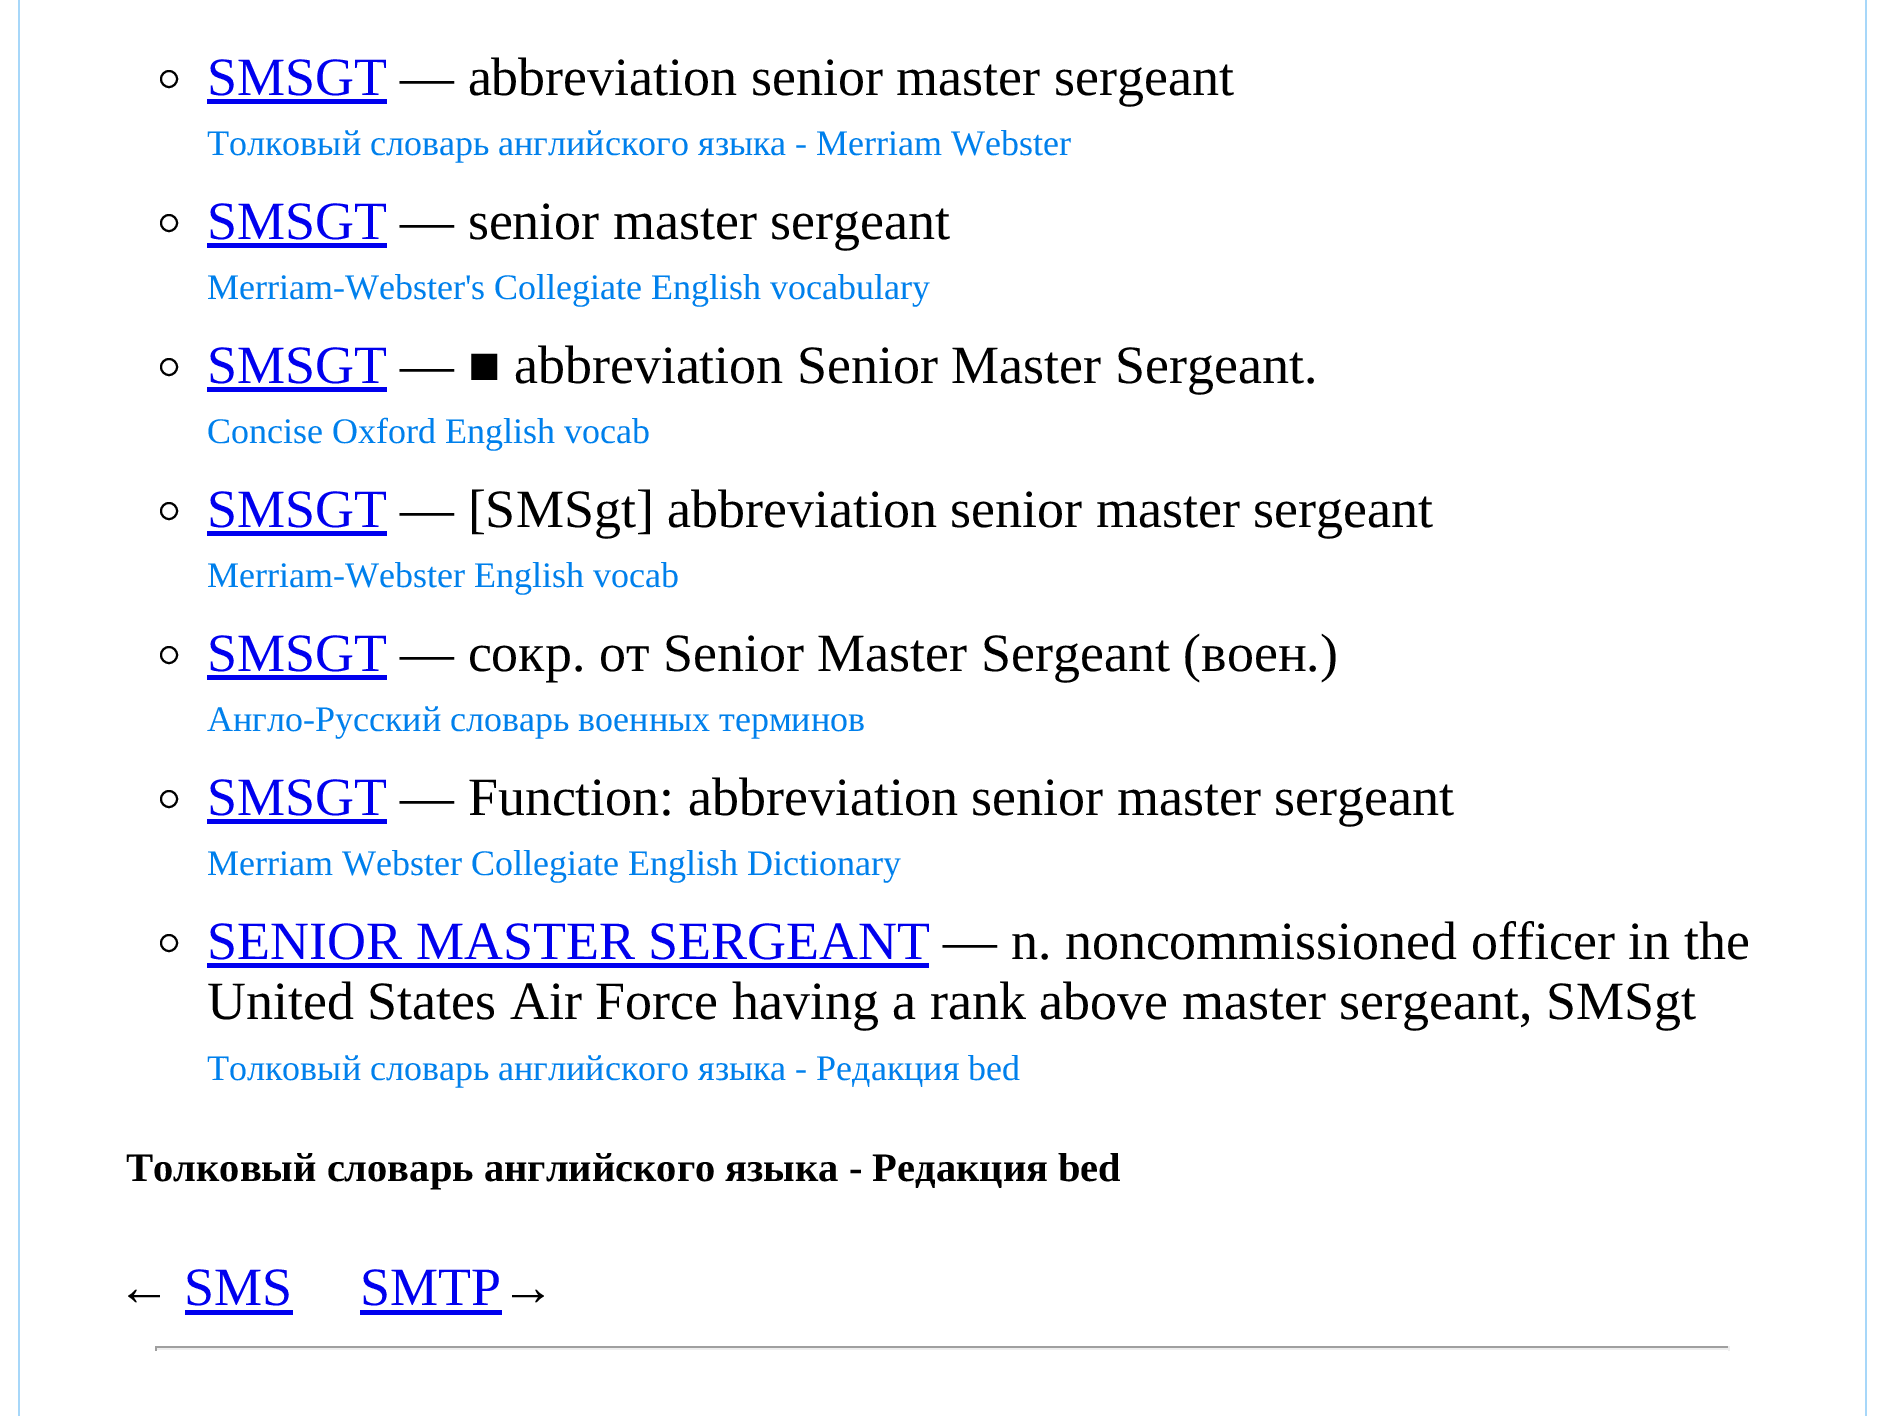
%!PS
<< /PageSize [1884 1416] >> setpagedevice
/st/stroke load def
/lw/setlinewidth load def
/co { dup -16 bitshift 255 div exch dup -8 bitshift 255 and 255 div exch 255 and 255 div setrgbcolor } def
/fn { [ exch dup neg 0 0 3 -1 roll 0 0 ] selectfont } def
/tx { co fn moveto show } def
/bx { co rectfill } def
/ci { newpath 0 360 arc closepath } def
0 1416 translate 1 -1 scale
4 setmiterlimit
0 0 1884 1416 16#FFFFFF bx
1865 0 2 1416 16#A7D7F9 bx
18 0 2 1416 16#A7D7F9 bx
16#000000 co
2 lw
169 79 8 ci st
207 99 180 5 16#0000EE bx
16#000000 co
169 223 8 ci st
207 243 180 5 16#0000EE bx
16#000000 co
169 367 8 ci st
207 387 180 5 16#0000EE bx
16#000000 co
169 511 8 ci st
207 531 180 5 16#0000EE bx
16#000000 co
169 655 8 ci st
207 675 180 5 16#0000EE bx
16#000000 co
169 799 8 ci st
207 819 180 5 16#0000EE bx
16#000000 co
169 943 8 ci st
207 963 722 5 16#0000EE bx
185 1310 108 5 16#0000EE bx
360 1310 142 5 16#0000EE bx
155 1346 1575 2 16#9F9F9F bx
1728 1346 2 5 16#EEEEEE bx
155 1348 1575 2 16#EEEEEE bx
155 1346 2 5 16#9F9F9F bx
(SMSGT) 207 95 /LiberationSerif-Regular 54 16#0000EE tx
(— abbreviation senior master sergeant) 400 95 /LiberationSerif-Regular 54 16#000000 tx
(Толковый словарь английского языка - Merriam Webster) 207 155 /LiberationSerif-Regular 36 16#0080EC tx
(SMSGT) 207 239 /LiberationSerif-Regular 54 16#0000EE tx
(— senior master sergeant) 400 239 /LiberationSerif-Regular 54 16#000000 tx
(Merriam-Webster's Collegiate English vocabulary) 207 299 /LiberationSerif-Regular 36 16#0080EC tx
(SMSGT) 207 383 /LiberationSerif-Regular 54 16#0000EE tx
(— ■ abbreviation Senior Master Sergeant.) 400 383 /LiberationSerif-Regular 54 16#000000 tx
(Concise Oxford English vocab) 207 443 /LiberationSerif-Regular 36 16#0080EC tx
(SMSGT) 207 527 /LiberationSerif-Regular 54 16#0000EE tx
(— [SMSgt] abbreviation senior master sergeant) 400 527 /LiberationSerif-Regular 54 16#000000 tx
(Merriam-Webster English vocab) 207 587 /LiberationSerif-Regular 36 16#0080EC tx
(SMSGT) 207 671 /LiberationSerif-Regular 54 16#0000EE tx
(— сокр. от Senior Master Sergeant \(воен.\)) 400 671 /LiberationSerif-Regular 54 16#000000 tx
(Англо-Русский словарь военных терминов) 207 731 /LiberationSerif-Regular 36 16#0080EC tx
(SMSGT) 207 815 /LiberationSerif-Regular 54 16#0000EE tx
(— Function: abbreviation senior master sergeant) 400 815 /LiberationSerif-Regular 54 16#000000 tx
(Merriam Webster Collegiate English Dictionary) 207 875 /LiberationSerif-Regular 36 16#0080EC tx
(SENIOR MASTER SERGEANT) 207 959 /LiberationSerif-Regular 54 16#0000EE tx
(— n. noncommissioned officer in the) 943 959 /LiberationSerif-Regular 54 16#000000 tx
(United States Air Force having a rank above master sergeant, SMSgt) 207 1019 /LiberationSerif-Regular 54 16#000000 tx
(Толковый словарь английского языка - Редакция bed) 207 1080 /LiberationSerif-Regular 36 16#0080EC tx
(Толковый словарь английского языка - Редакция bed) 126 1181 /LiberationSerif-Bold 40.5 16#000000 tx
(←) 117 1305 /LiberationSerif-Regular 54 16#000000 tx
(SMS) 184 1305 /LiberationSerif-Regular 54 16#0000EE tx
(SMTP) 360 1305 /LiberationSerif-Regular 54 16#0000EE tx
(→) 501 1305 /LiberationSerif-Regular 54 16#000000 tx
showpage
